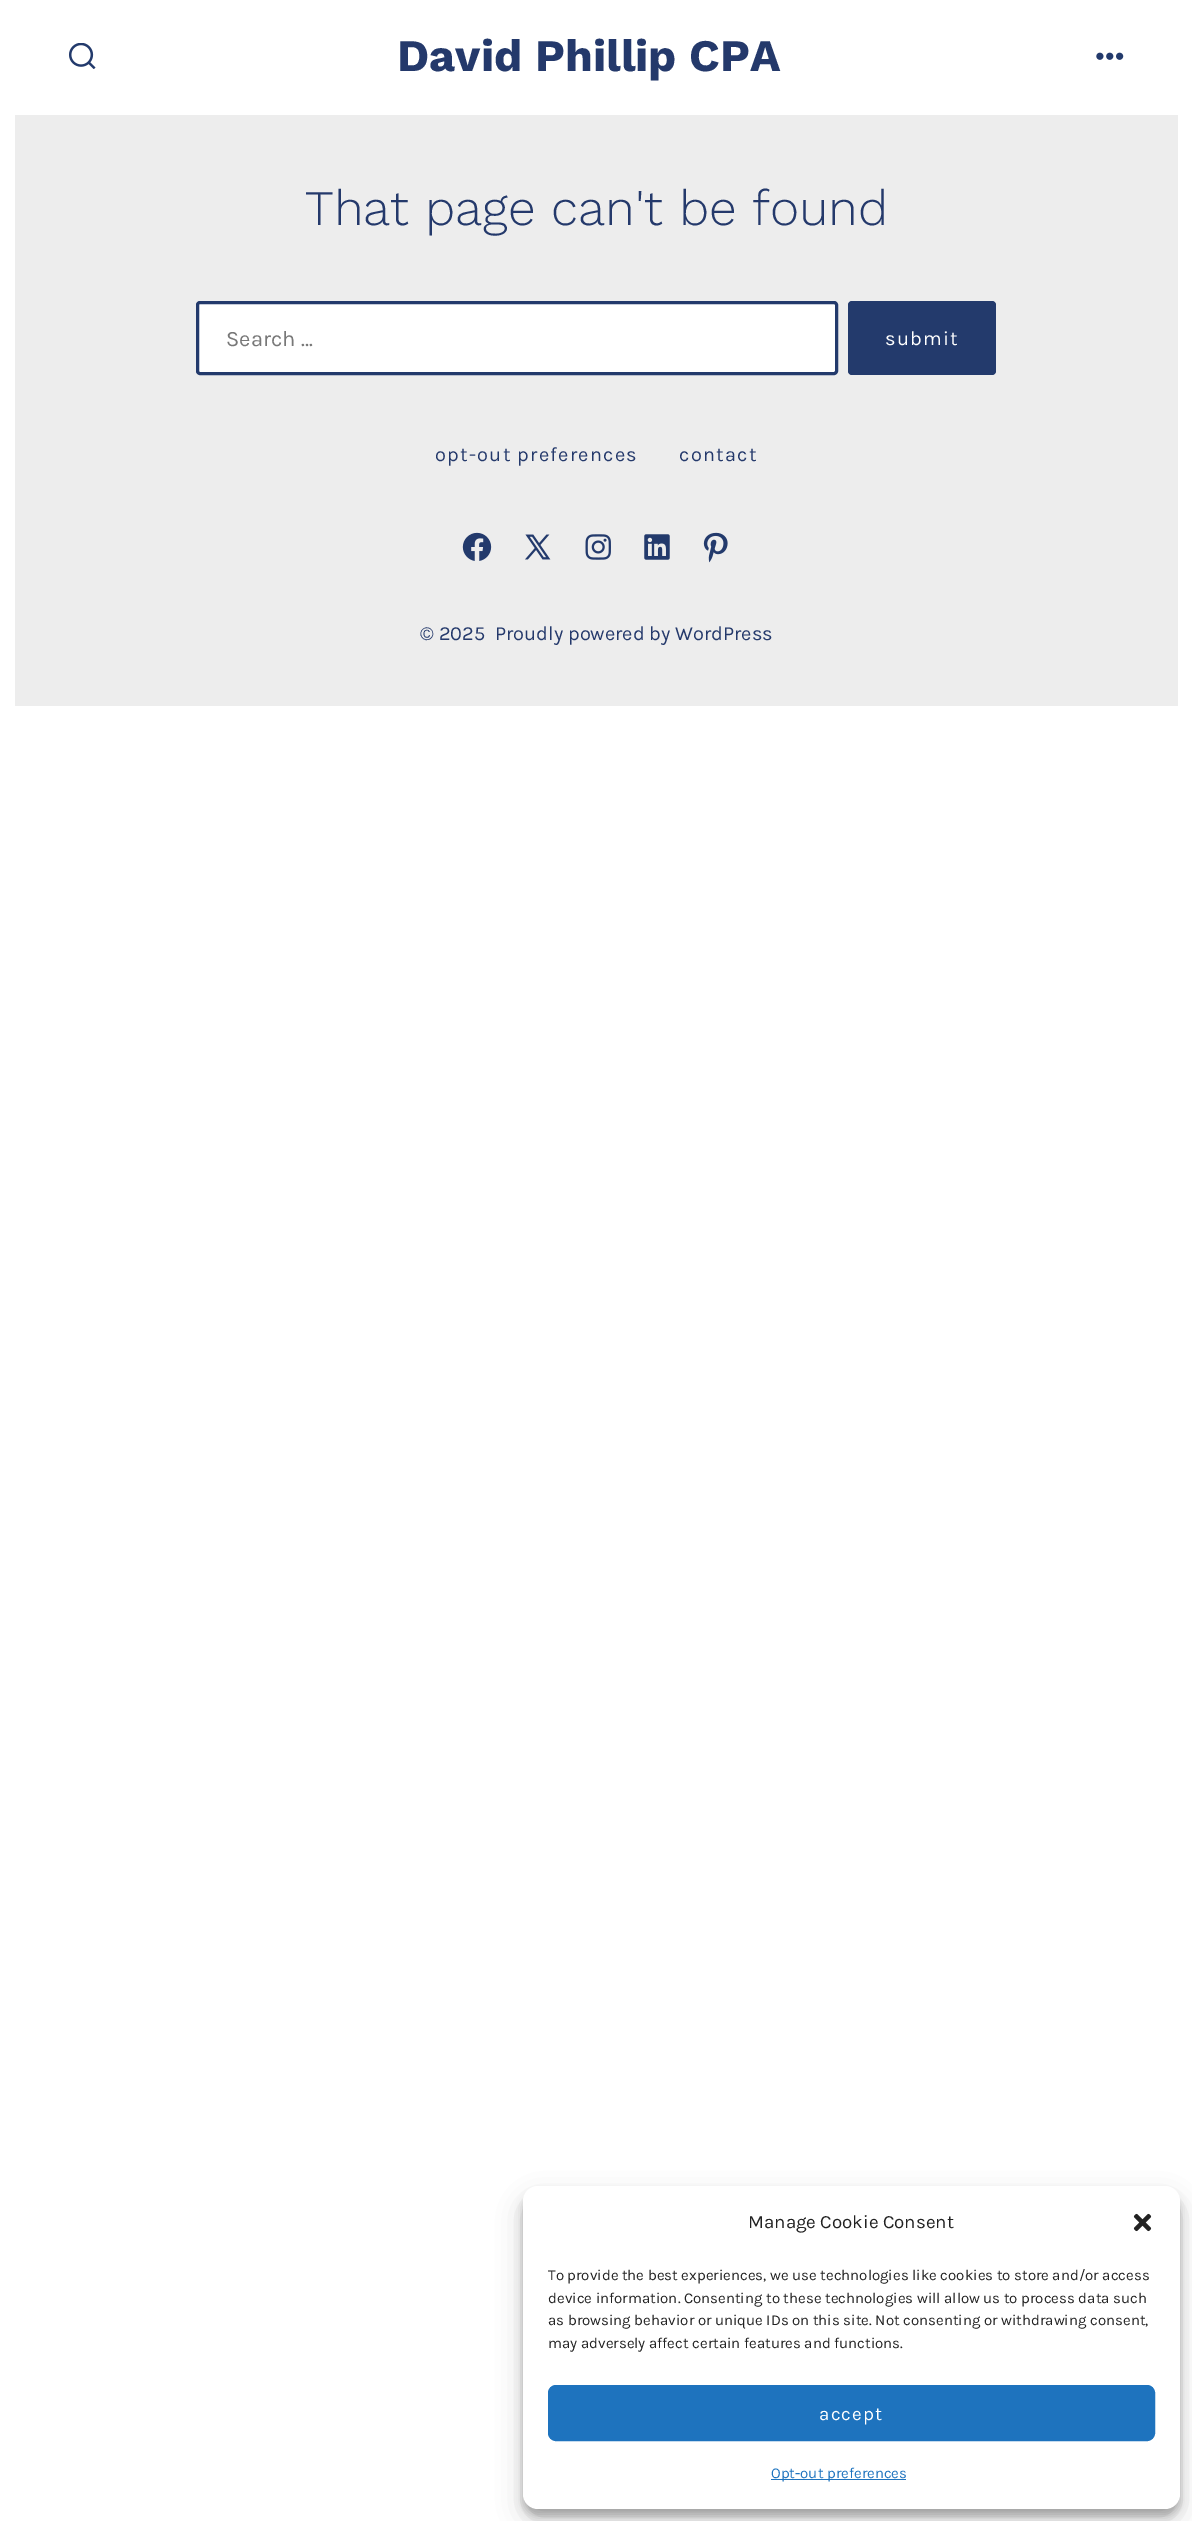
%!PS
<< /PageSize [1192 2521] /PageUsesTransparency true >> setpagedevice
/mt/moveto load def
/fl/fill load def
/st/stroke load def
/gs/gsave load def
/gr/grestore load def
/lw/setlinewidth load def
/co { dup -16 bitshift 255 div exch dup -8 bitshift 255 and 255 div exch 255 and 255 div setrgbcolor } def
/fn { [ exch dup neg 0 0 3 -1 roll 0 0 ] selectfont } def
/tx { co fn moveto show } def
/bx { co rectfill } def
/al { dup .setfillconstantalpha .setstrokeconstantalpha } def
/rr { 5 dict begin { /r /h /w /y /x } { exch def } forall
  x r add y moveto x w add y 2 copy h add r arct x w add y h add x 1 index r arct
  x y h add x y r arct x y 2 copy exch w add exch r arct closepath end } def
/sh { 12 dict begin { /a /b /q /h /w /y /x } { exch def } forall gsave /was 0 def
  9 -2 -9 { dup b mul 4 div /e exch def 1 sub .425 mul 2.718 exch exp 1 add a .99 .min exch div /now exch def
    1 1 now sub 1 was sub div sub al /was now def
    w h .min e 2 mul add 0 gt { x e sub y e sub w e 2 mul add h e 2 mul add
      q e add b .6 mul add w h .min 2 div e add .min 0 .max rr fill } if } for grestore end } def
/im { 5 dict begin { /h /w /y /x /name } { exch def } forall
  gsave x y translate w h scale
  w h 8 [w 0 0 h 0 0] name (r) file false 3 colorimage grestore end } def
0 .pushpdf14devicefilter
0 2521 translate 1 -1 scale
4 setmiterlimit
0 0 1192 2521 16#FFFFFF bx
15 115 1163 591 16#EDEDED bx
(media/1.raw) 69 43 27 26 im
(media/2.raw) 1096 52 28 8 im
16#FFFFFF co
197.5 302.5 639 71 2.5 rr gs fl gr
16#233A6C co
3 lw
st
848 301 148 74 4 rr fl
(media/3.raw) 462 532 30 29 im
(media/4.raw) 525 534 26 26 im
(media/5.raw) 585 534 26 26 im
(media/6.raw) 644 534 26 26 im
(media/7.raw) 703 532 25 31 im
16#000000 co
523 2194 657 322 15 4 .23 sh
523 2199 657 322 15 12.5 .19 sh
16#FFFFFF co
523 2186 657 323 15 rr fl
(media/8.raw) 1133 2213 19 19 im
16#1E73BE co
548.5 2385.5 606 55 7.5 rr gs fl gr
1 lw
st
771 2479 135 1 16#1E73BE bx
(David Phillip CPA) 397 71 /WorkSans-Bold 45 16#24396B tx
(That page can't be found) 305 225 /WorkSans-Light 49.75 16#24396B tx
(Search …) 226 346 /Karla-Regular 22 16#787878 tx
/Karla-Regular 20 fn
16#FFFFFF co
885 345 mt 1.25 0 (submit) ashow
16#24396B co
435 461 mt 1.25 0 (opt-out preferences) ashow
679 461 mt 1.25 0 (contact) ashow
(© 2025) 420 640 /Karla-Regular 20 16#24396B tx
(Proudly powered by WordPress) 495 640 /Karla-Regular 20 16#24396B tx
(Manage Cookie Consent) 748 2228 /Karla-Regular 18.75 16#222222 tx
(To provide the best experiences, we use technologies like cookies to store and/or access) 548 2280 /Karla-Regular 15 16#222222 tx
(device information. Consenting to these technologies will allow us to process data such) 548 2303 /Karla-Regular 15 16#222222 tx
(as browsing behavior or unique IDs on this site. Not consenting or withdrawing consent,) 548 2325 /Karla-Regular 15 16#222222 tx
(may adversely affect certain features and functions.) 548 2348 /Karla-Regular 15 16#222222 tx
/Karla-Regular 18.75 fn
16#FFFFFF co
819 2420 mt 1.25 0 (accept) ashow
(Opt-out preferences) 771 2478 /Karla-Regular 15 16#1E73BE tx
.poppdf14devicefilter showpage
